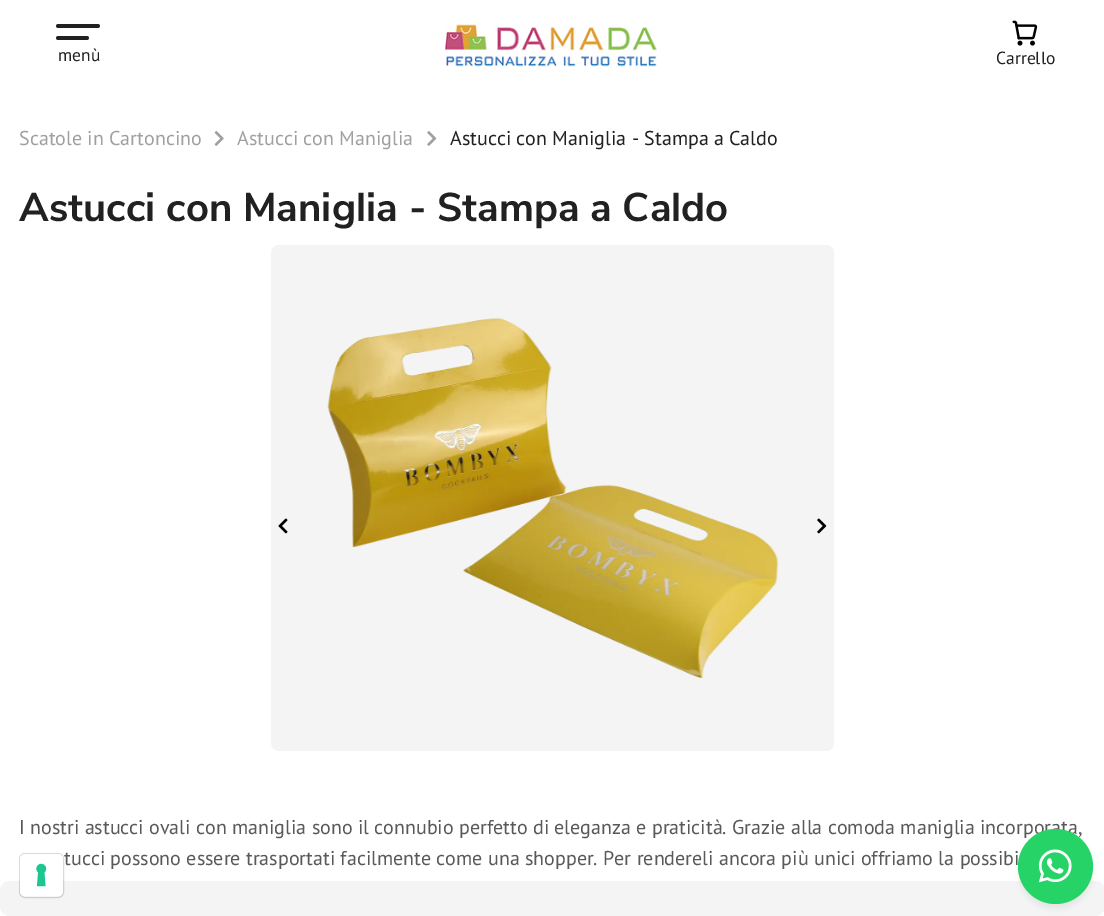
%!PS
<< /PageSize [1104 916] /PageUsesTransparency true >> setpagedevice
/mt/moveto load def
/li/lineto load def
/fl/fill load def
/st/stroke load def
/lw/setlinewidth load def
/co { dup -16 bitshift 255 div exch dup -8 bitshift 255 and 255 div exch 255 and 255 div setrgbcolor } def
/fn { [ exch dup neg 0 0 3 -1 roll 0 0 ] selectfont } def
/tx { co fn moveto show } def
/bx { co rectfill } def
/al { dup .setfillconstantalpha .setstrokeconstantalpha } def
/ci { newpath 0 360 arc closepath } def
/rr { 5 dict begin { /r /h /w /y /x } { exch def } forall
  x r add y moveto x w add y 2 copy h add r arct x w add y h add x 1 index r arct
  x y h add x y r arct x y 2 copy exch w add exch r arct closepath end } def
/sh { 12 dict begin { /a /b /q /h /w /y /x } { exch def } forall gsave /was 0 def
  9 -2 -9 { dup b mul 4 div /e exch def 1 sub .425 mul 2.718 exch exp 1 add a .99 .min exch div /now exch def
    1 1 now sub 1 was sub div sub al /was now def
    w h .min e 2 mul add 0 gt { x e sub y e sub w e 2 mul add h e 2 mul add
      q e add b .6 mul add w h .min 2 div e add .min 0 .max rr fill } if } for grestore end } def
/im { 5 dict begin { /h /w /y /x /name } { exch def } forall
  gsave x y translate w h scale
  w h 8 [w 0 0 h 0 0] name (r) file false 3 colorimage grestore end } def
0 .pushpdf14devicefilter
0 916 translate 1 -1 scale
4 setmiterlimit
0 0 1104 916 16#FFFFFF bx
16#212121 co
3.8 lw
1 setlinecap
1 setlinejoin
58 38 mt 87 38 li 58 26 mt 98 26 li st
(media/1.raw) 445 24 212 43 im
(media/2.raw) 1012 20 26 26 im
(media/3.raw) 214 131 10 15 im
(media/4.raw) 427 131 10 15 im
16#F4F4F4 co
271 245 563 506 8 rr fl
(media/5.raw) 327 318 452 360 im
(media/6.raw) 278 518 10 16 im
(media/7.raw) 817 518 10 16 im
0 881 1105 35 10 rr fl
0.15 al
16#000000 co
1 lw
0 setlinecap
0 setlinejoin
19.5 853.5 44 44 5.5 rr st
1 al
16#FFFFFF co
20 854 43 42 5 rr fl
(media/8.raw) 36 863 11 24 im
16#000000 co
1018 834 75 75 37.5 3 .06 sh
(menù) 58 61 /PTSans-Regular 17.5 16#212121 tx
(Carrello) 996 64 /PTSans-Regular 17.5 16#212121 tx
(Scatole in Cartoncino) 19 145 /PTSans-Regular 20 16#A0A0A0 tx
(Astucci con Maniglia) 237 145 /PTSans-Regular 20 16#A0A0A0 tx
(Astucci con Maniglia - Stampa a Caldo) 450 145 /PTSans-Regular 20 16#212121 tx
(Astucci con Maniglia - Stampa a Caldo) 19 221 /NunitoSans-Bold 40 16#212121 tx
(I nostri astucci ovali con maniglia sono il connubio perfetto di eleganza e praticità. Grazie alla comoda maniglia incorporata,) 19 834 /PTSans-Regular 20 16#595959 tx
(tucci possono essere trasportati facilmente come una shopper. Per rendereli ancora più unici offriamo la possibi) 64 865 /PTSans-Regular 20 16#595959 tx
16#25D366 co
1055.5 866.5 37.5 ci fl
(media/9.raw) 1038 849 34 34 im
.poppdf14devicefilter showpage
